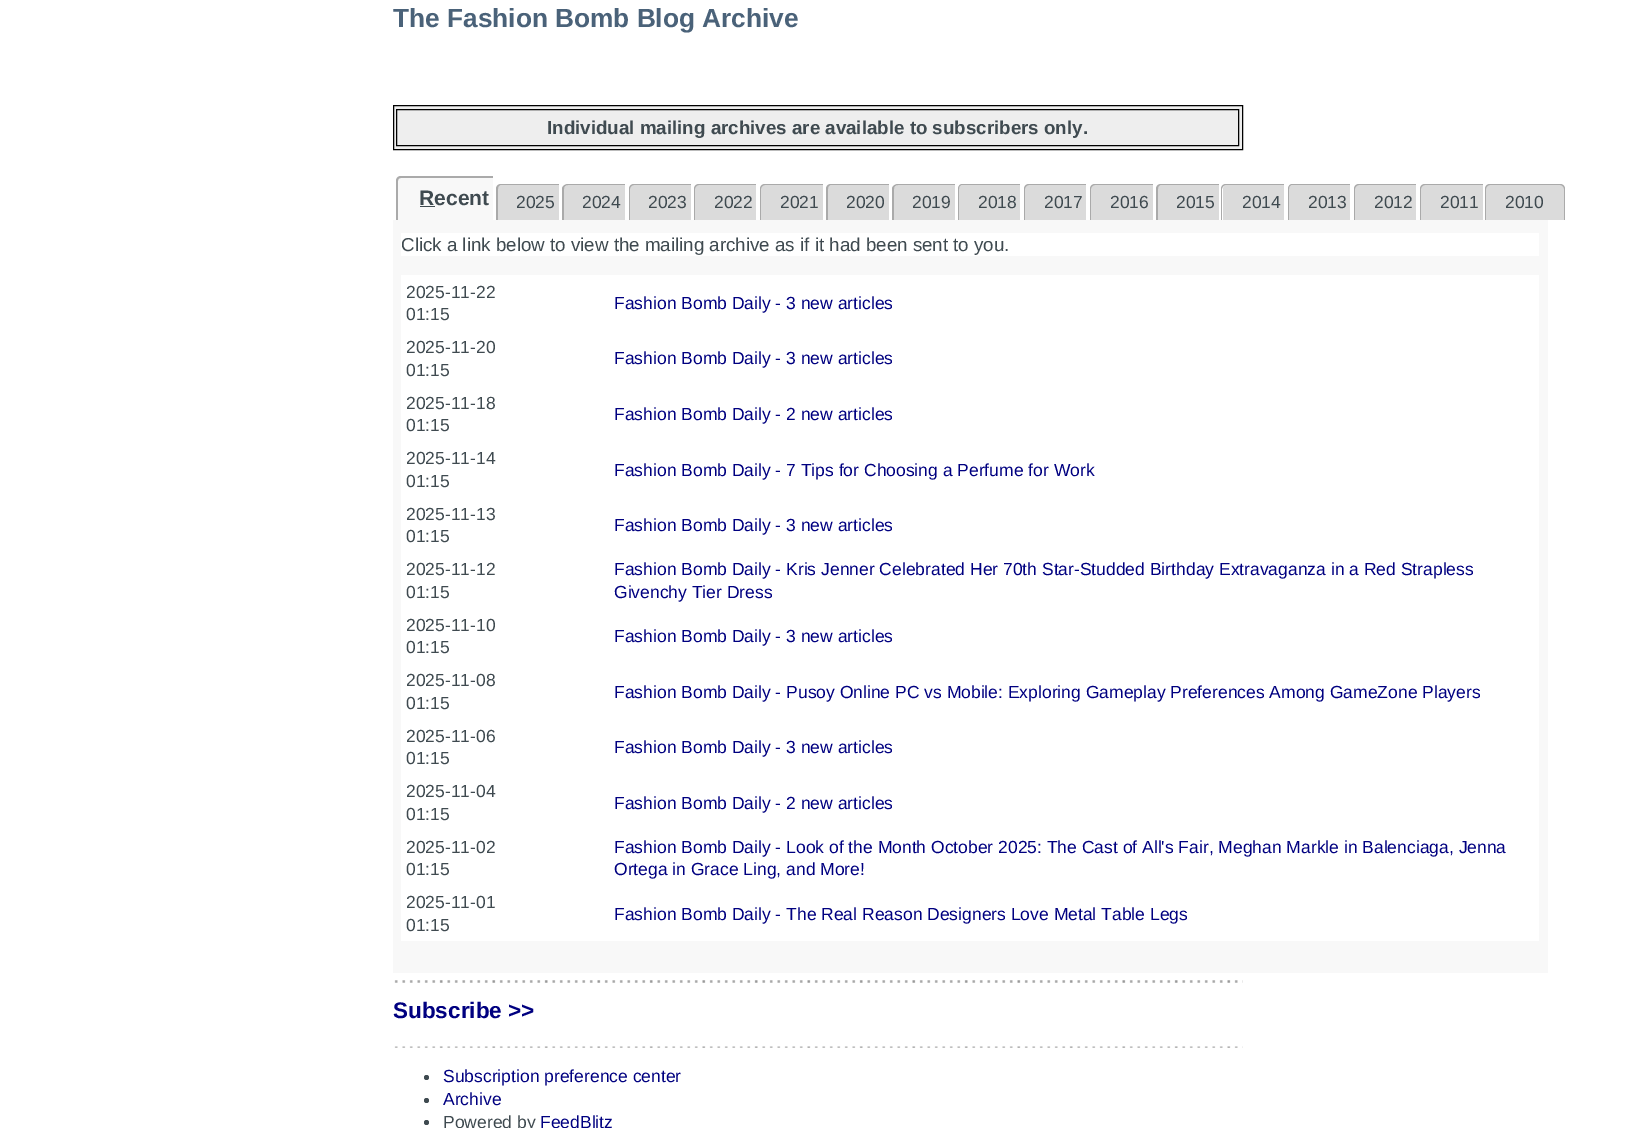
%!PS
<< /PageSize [1635 1128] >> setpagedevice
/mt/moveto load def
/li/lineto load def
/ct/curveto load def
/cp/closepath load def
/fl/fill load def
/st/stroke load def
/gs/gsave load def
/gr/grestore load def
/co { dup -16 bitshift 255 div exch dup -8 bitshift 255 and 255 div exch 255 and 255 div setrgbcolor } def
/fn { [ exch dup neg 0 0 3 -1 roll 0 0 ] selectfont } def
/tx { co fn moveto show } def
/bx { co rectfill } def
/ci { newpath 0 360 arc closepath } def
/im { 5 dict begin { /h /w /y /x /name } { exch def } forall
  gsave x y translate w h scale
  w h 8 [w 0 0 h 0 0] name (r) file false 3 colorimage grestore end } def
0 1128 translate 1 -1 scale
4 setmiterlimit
0 0 1635 1128 16#FFFFFF bx
16#EEEEEE co
393.5 105.5 mt 1242.5 105.5 li 1242.5 149.5 li 393.5 149.5 li cp gs fl gr
16#000000 co
st
396.5 109.5 842 36 rectstroke
16#F8F8F8 co
402 178 mt 507 178 li 509 178 511 180 511 182 ct 511 220 li 398 220 li 398 182 li 398 180 400 178 402 178 ct cp fl
16#AAAAAA co
401 176 mt 508 176 li 510 176 512 178 512 181 ct 512 220 li 396 220 li 396 181 li 396 178 398 176 401 176 ct cp 401 178 mt 508 178 li 510 178 511 179 511 181 ct 511 220 li 398 220 li 398 181 li 398 179 399 178 401 178 ct cp eofill
420 206 15 1 16#3F4A50 bx
493 176 19 44 16#FFFFFF bx
16#DBDBDB co
502 185 mt 570 185 li 572 185 574 187 574 189 ct 574 220 li 498 220 li 498 189 li 498 187 500 185 502 185 ct cp fl
16#AAAAAA co
501 184 mt 570 184 li 573 184 575 186 575 189 ct 575 220 li 496 220 li 496 189 li 496 186 498 184 501 184 ct cp 501 185 mt 570 185 li 572 185 574 187 574 189 ct 574 220 li 498 220 li 498 189 li 498 187 499 185 501 185 ct cp eofill
559 184 16 36 16#FFFFFF bx
16#DBDBDB co
568 185 mt 636 185 li 638 185 640 187 640 189 ct 640 220 li 564 220 li 564 189 li 564 187 566 185 568 185 ct cp fl
16#AAAAAA co
568 184 mt 636 184 li 639 184 641 186 641 189 ct 641 220 li 562 220 li 562 189 li 562 186 565 184 568 184 ct cp 568 185 mt 636 185 li 638 185 640 187 640 189 ct 640 220 li 564 220 li 564 189 li 564 187 565 185 568 185 ct cp eofill
625 184 16 36 16#FFFFFF bx
16#DBDBDB co
634 185 mt 702 185 li 704 185 706 187 706 189 ct 706 220 li 630 220 li 630 189 li 630 187 632 185 634 185 ct cp fl
16#AAAAAA co
634 184 mt 702 184 li 705 184 708 186 708 189 ct 708 220 li 629 220 li 629 189 li 629 186 631 184 634 184 ct cp 634 185 mt 702 185 li 705 185 706 187 706 189 ct 706 220 li 630 220 li 630 189 li 630 187 632 185 634 185 ct cp eofill
691 184 17 36 16#FFFFFF bx
16#DBDBDB co
699 185 mt 769 185 li 771 185 773 187 773 189 ct 773 220 li 695 220 li 695 189 li 695 187 697 185 699 185 ct cp fl
16#AAAAAA co
699 184 mt 769 184 li 772 184 774 186 774 189 ct 774 220 li 694 220 li 694 189 li 694 186 696 184 699 184 ct cp 699 185 mt 769 185 li 771 185 772 187 772 189 ct 772 220 li 695 220 li 695 189 li 695 187 697 185 699 185 ct cp eofill
756 184 18 36 16#FFFFFF bx
16#DBDBDB co
765 185 mt 834 185 li 836 185 838 187 838 189 ct 838 220 li 761 220 li 761 189 li 761 187 763 185 765 185 ct cp fl
16#AAAAAA co
765 184 mt 834 184 li 837 184 839 186 839 189 ct 839 220 li 760 220 li 760 189 li 760 186 762 184 765 184 ct cp 765 185 mt 834 185 li 836 185 838 187 838 189 ct 838 220 li 761 220 li 761 189 li 761 187 763 185 765 185 ct cp eofill
823 184 16 36 16#FFFFFF bx
16#DBDBDB co
832 185 mt 900 185 li 902 185 904 187 904 189 ct 904 220 li 828 220 li 828 189 li 828 187 830 185 832 185 ct cp fl
16#AAAAAA co
831 184 mt 900 184 li 903 184 905 186 905 189 ct 905 220 li 826 220 li 826 189 li 826 186 828 184 831 184 ct cp 831 185 mt 900 185 li 902 185 904 187 904 189 ct 904 220 li 828 220 li 828 189 li 828 187 829 185 831 185 ct cp eofill
889 184 16 36 16#FFFFFF bx
16#DBDBDB co
898 185 mt 966 185 li 968 185 970 187 970 189 ct 970 220 li 894 220 li 894 189 li 894 187 896 185 898 185 ct cp fl
16#AAAAAA co
898 184 mt 966 184 li 969 184 971 186 971 189 ct 971 220 li 892 220 li 892 189 li 892 186 895 184 898 184 ct cp 898 185 mt 966 185 li 968 185 970 187 970 189 ct 970 220 li 894 220 li 894 189 li 894 187 895 185 898 185 ct cp eofill
955 184 16 36 16#FFFFFF bx
16#DBDBDB co
963 185 mt 1032 185 li 1034 185 1036 187 1036 189 ct 1036 220 li 959 220 li 959 189 li 959 187 961 185 963 185 ct cp fl
16#AAAAAA co
962 184 mt 1032 184 li 1035 184 1038 186 1038 189 ct 1038 220 li 958 220 li 958 189 li 958 186 960 184 962 184 ct cp 962 185 mt 1032 185 li 1035 185 1036 187 1036 189 ct 1036 220 li 959 220 li 959 189 li 959 187 960 185 962 185 ct cp eofill
1020 184 18 36 16#FFFFFF bx
16#DBDBDB co
1029 185 mt 1097 185 li 1099 185 1101 187 1101 189 ct 1101 220 li 1025 220 li 1025 189 li 1025 187 1027 185 1029 185 ct cp fl
16#AAAAAA co
1029 184 mt 1098 184 li 1100 184 1102 186 1102 189 ct 1102 220 li 1024 220 li 1024 189 li 1024 186 1026 184 1029 184 ct cp 1029 185 mt 1098 185 li 1100 185 1101 187 1101 189 ct 1101 220 li 1025 220 li 1025 189 li 1025 187 1027 185 1029 185 ct cp eofill
1086 184 16 36 16#FFFFFF bx
16#DBDBDB co
1095 185 mt 1164 185 li 1166 185 1168 187 1168 189 ct 1168 220 li 1091 220 li 1091 189 li 1091 187 1093 185 1095 185 ct cp fl
16#AAAAAA co
1095 184 mt 1164 184 li 1167 184 1169 186 1169 189 ct 1169 220 li 1090 220 li 1090 189 li 1090 186 1092 184 1095 184 ct cp 1095 185 mt 1164 185 li 1166 185 1168 187 1168 189 ct 1168 220 li 1091 220 li 1091 189 li 1091 187 1093 185 1095 185 ct cp eofill
1153 184 16 36 16#FFFFFF bx
16#DBDBDB co
1162 185 mt 1230 185 li 1232 185 1234 187 1234 189 ct 1234 220 li 1158 220 li 1158 189 li 1158 187 1160 185 1162 185 ct cp fl
16#AAAAAA co
1161 184 mt 1230 184 li 1233 184 1235 186 1235 189 ct 1235 220 li 1156 220 li 1156 189 li 1156 186 1158 184 1161 184 ct cp 1161 185 mt 1230 185 li 1232 185 1234 187 1234 189 ct 1234 220 li 1158 220 li 1158 189 li 1158 187 1159 185 1161 185 ct cp eofill
1219 184 16 36 16#FFFFFF bx
16#DBDBDB co
1227 185 mt 1296 185 li 1298 185 1300 187 1300 189 ct 1300 220 li 1223 220 li 1223 189 li 1223 187 1225 185 1227 185 ct cp fl
16#AAAAAA co
1226 184 mt 1296 184 li 1299 184 1301 186 1301 189 ct 1301 220 li 1221 220 li 1221 189 li 1221 186 1223 184 1226 184 ct cp 1226 185 mt 1296 185 li 1298 185 1300 187 1300 189 ct 1300 220 li 1222 220 li 1222 189 li 1222 187 1224 185 1226 185 ct cp eofill
1284 184 17 36 16#FFFFFF bx
16#DBDBDB co
1293 185 mt 1361 185 li 1363 185 1365 187 1365 189 ct 1365 220 li 1289 220 li 1289 189 li 1289 187 1291 185 1293 185 ct cp fl
16#AAAAAA co
1292 184 mt 1361 184 li 1364 184 1366 186 1366 189 ct 1366 220 li 1288 220 li 1288 189 li 1288 186 1290 184 1292 184 ct cp 1292 185 mt 1361 185 li 1363 185 1365 187 1365 189 ct 1365 220 li 1289 220 li 1289 189 li 1289 187 1290 185 1292 185 ct cp eofill
1350 184 16 36 16#FFFFFF bx
16#DBDBDB co
1359 185 mt 1427 185 li 1429 185 1431 187 1431 189 ct 1431 220 li 1355 220 li 1355 189 li 1355 187 1357 185 1359 185 ct cp fl
16#AAAAAA co
1359 184 mt 1428 184 li 1430 184 1432 186 1432 189 ct 1432 220 li 1354 220 li 1354 189 li 1354 186 1356 184 1359 184 ct cp 1359 185 mt 1428 185 li 1430 185 1431 187 1431 189 ct 1431 220 li 1355 220 li 1355 189 li 1355 187 1357 185 1359 185 ct cp eofill
1416 184 16 36 16#FFFFFF bx
16#DBDBDB co
1425 185 mt 1494 185 li 1496 185 1498 187 1498 189 ct 1498 220 li 1421 220 li 1421 189 li 1421 187 1423 185 1425 185 ct cp fl
16#AAAAAA co
1425 184 mt 1494 184 li 1497 184 1499 186 1499 189 ct 1499 220 li 1420 220 li 1420 189 li 1420 186 1422 184 1425 184 ct cp 1425 185 mt 1494 185 li 1496 185 1498 187 1498 189 ct 1498 220 li 1421 220 li 1421 189 li 1421 187 1423 185 1425 185 ct cp eofill
1483 184 16 36 16#FFFFFF bx
16#DBDBDB co
1490 185 mt 1560 185 li 1562 185 1564 187 1564 189 ct 1564 220 li 1486 220 li 1486 189 li 1486 187 1488 185 1490 185 ct cp fl
16#AAAAAA co
1490 184 mt 1560 184 li 1563 184 1565 186 1565 189 ct 1565 220 li 1485 220 li 1485 189 li 1485 186 1487 184 1490 184 ct cp 1490 185 mt 1560 185 li 1562 185 1564 187 1564 189 ct 1564 220 li 1486 220 li 1486 189 li 1486 187 1488 185 1490 185 ct cp eofill
393 220 1155 753 16#F8F8F8 bx
401 233 1138 23 16#FFFFFF bx
401 275 1138 56 16#FFFFFF bx
401 331 1138 55 16#FFFFFF bx
401 386 1138 55 16#FFFFFF bx
401 441 1138 57 16#FFFFFF bx
401 498 1138 55 16#FFFFFF bx
401 553 1138 56 16#FFFFFF bx
401 609 1138 55 16#FFFFFF bx
401 664 1138 55 16#FFFFFF bx
401 719 1138 56 16#FFFFFF bx
401 775 1138 55 16#FFFFFF bx
401 830 1138 56 16#FFFFFF bx
401 886 1138 55 16#FFFFFF bx
(media/1.raw) 394 980 849 3 im
(media/2.raw) 394 1046 849 2 im
16#3F4A50 co
426.5 1077.5 2.5 ci fl
426.5 1100.5 2.5 ci fl
426.5 1122.5 2.5 ci fl
(The Fashion Bomb Blog Archive) 393 27 /LiberationSans-Bold 26.25 16#4A6279 tx
(Individual mailing archives are available to subscribers only.) 547 134 /LiberationSans-Bold 18.75 16#3F4A50 tx
(Recent) 419 205 /LiberationSans-Bold 21 16#3F4A50 tx
(2025) 516 208 /LiberationSans-Regular 17.5 16#3F4A50 tx
(2024) 582 208 /LiberationSans-Regular 17.5 16#3F4A50 tx
(2023) 648 208 /LiberationSans-Regular 17.5 16#3F4A50 tx
(2022) 714 208 /LiberationSans-Regular 17.5 16#3F4A50 tx
(2021) 780 208 /LiberationSans-Regular 17.5 16#3F4A50 tx
(2020) 846 208 /LiberationSans-Regular 17.5 16#3F4A50 tx
(2019) 912 208 /LiberationSans-Regular 17.5 16#3F4A50 tx
(2018) 978 208 /LiberationSans-Regular 17.5 16#3F4A50 tx
(2017) 1044 208 /LiberationSans-Regular 17.5 16#3F4A50 tx
(2016) 1110 208 /LiberationSans-Regular 17.5 16#3F4A50 tx
(2015) 1176 208 /LiberationSans-Regular 17.5 16#3F4A50 tx
(2014) 1242 208 /LiberationSans-Regular 17.5 16#3F4A50 tx
(2013) 1308 208 /LiberationSans-Regular 17.5 16#3F4A50 tx
(2012) 1374 208 /LiberationSans-Regular 17.5 16#3F4A50 tx
(2011) 1440 208 /LiberationSans-Regular 17.5 16#3F4A50 tx
(2010) 1505 208 /LiberationSans-Regular 17.5 16#3F4A50 tx
(Click a link below to view the mailing archive as if it had been sent to you.) 401 251 /LiberationSans-Regular 18.75 16#3F4A50 tx
(2025-11-22) 406 298 /LiberationSans-Regular 17.5 16#3F4A50 tx
(01:15) 406 320 /LiberationSans-Regular 17.5 16#3F4A50 tx
(Fashion Bomb Daily - 3 new articles) 614 309 /LiberationSans-Regular 17.5 16#000080 tx
(2025-11-20) 406 353 /LiberationSans-Regular 17.5 16#3F4A50 tx
(01:15) 406 376 /LiberationSans-Regular 17.5 16#3F4A50 tx
(Fashion Bomb Daily - 3 new articles) 614 364 /LiberationSans-Regular 17.5 16#000080 tx
(2025-11-18) 406 409 /LiberationSans-Regular 17.5 16#3F4A50 tx
(01:15) 406 431 /LiberationSans-Regular 17.5 16#3F4A50 tx
(Fashion Bomb Daily - 2 new articles) 614 420 /LiberationSans-Regular 17.5 16#000080 tx
(2025-11-14) 406 464 /LiberationSans-Regular 17.5 16#3F4A50 tx
(01:15) 406 487 /LiberationSans-Regular 17.5 16#3F4A50 tx
(Fashion Bomb Daily - 7 Tips for Choosing a Perfume for Work) 614 476 /LiberationSans-Regular 17.5 16#000080 tx
(2025-11-13) 406 520 /LiberationSans-Regular 17.5 16#3F4A50 tx
(01:15) 406 542 /LiberationSans-Regular 17.5 16#3F4A50 tx
(Fashion Bomb Daily - 3 new articles) 614 531 /LiberationSans-Regular 17.5 16#000080 tx
(2025-11-12) 406 575 /LiberationSans-Regular 17.5 16#3F4A50 tx
(01:15) 406 598 /LiberationSans-Regular 17.5 16#3F4A50 tx
(Fashion Bomb Daily - Kris Jenner Celebrated Her 70th Star-Studded Birthday Extravaganza in a Red Strapless) 614 575 /LiberationSans-Regular 17.5 16#000080 tx
(Givenchy Tier Dress) 614 598 /LiberationSans-Regular 17.5 16#000080 tx
(2025-11-10) 406 631 /LiberationSans-Regular 17.5 16#3F4A50 tx
(01:15) 406 653 /LiberationSans-Regular 17.5 16#3F4A50 tx
(Fashion Bomb Daily - 3 new articles) 614 642 /LiberationSans-Regular 17.5 16#000080 tx
(2025-11-08) 406 686 /LiberationSans-Regular 17.5 16#3F4A50 tx
(01:15) 406 709 /LiberationSans-Regular 17.5 16#3F4A50 tx
(Fashion Bomb Daily - Pusoy Online PC vs Mobile: Exploring Gameplay Preferences Among GameZone Players) 614 698 /LiberationSans-Regular 17.5 16#000080 tx
(2025-11-06) 406 742 /LiberationSans-Regular 17.5 16#3F4A50 tx
(01:15) 406 764 /LiberationSans-Regular 17.5 16#3F4A50 tx
(Fashion Bomb Daily - 3 new articles) 614 753 /LiberationSans-Regular 17.5 16#000080 tx
(2025-11-04) 406 797 /LiberationSans-Regular 17.5 16#3F4A50 tx
(01:15) 406 820 /LiberationSans-Regular 17.5 16#3F4A50 tx
(Fashion Bomb Daily - 2 new articles) 614 809 /LiberationSans-Regular 17.5 16#000080 tx
(2025-11-02) 406 853 /LiberationSans-Regular 17.5 16#3F4A50 tx
(01:15) 406 875 /LiberationSans-Regular 17.5 16#3F4A50 tx
(Fashion Bomb Daily - Look of the Month October 2025: The Cast of All's Fair, Meghan Markle in Balenciaga, Jenna) 614 853 /LiberationSans-Regular 17.5 16#000080 tx
(Ortega in Grace Ling, and More!) 614 875 /LiberationSans-Regular 17.5 16#000080 tx
(2025-11-01) 406 908 /LiberationSans-Regular 17.5 16#3F4A50 tx
(01:15) 406 931 /LiberationSans-Regular 17.5 16#3F4A50 tx
(Fashion Bomb Daily - The Real Reason Designers Love Metal Table Legs) 614 920 /LiberationSans-Regular 17.5 16#000080 tx
(Subscribe >>) 393 1018 /LiberationSans-Bold 22.5 16#000080 tx
(Subscription preference center) 443 1082 /LiberationSans-Regular 17.5 16#000080 tx
(Archive) 443 1105 /LiberationSans-Regular 17.5 16#000080 tx
(Powered by) 443 1128 /LiberationSans-Regular 17.5 16#3F4A50 tx
(FeedBlitz) 540 1128 /LiberationSans-Regular 17.5 16#000080 tx
showpage
